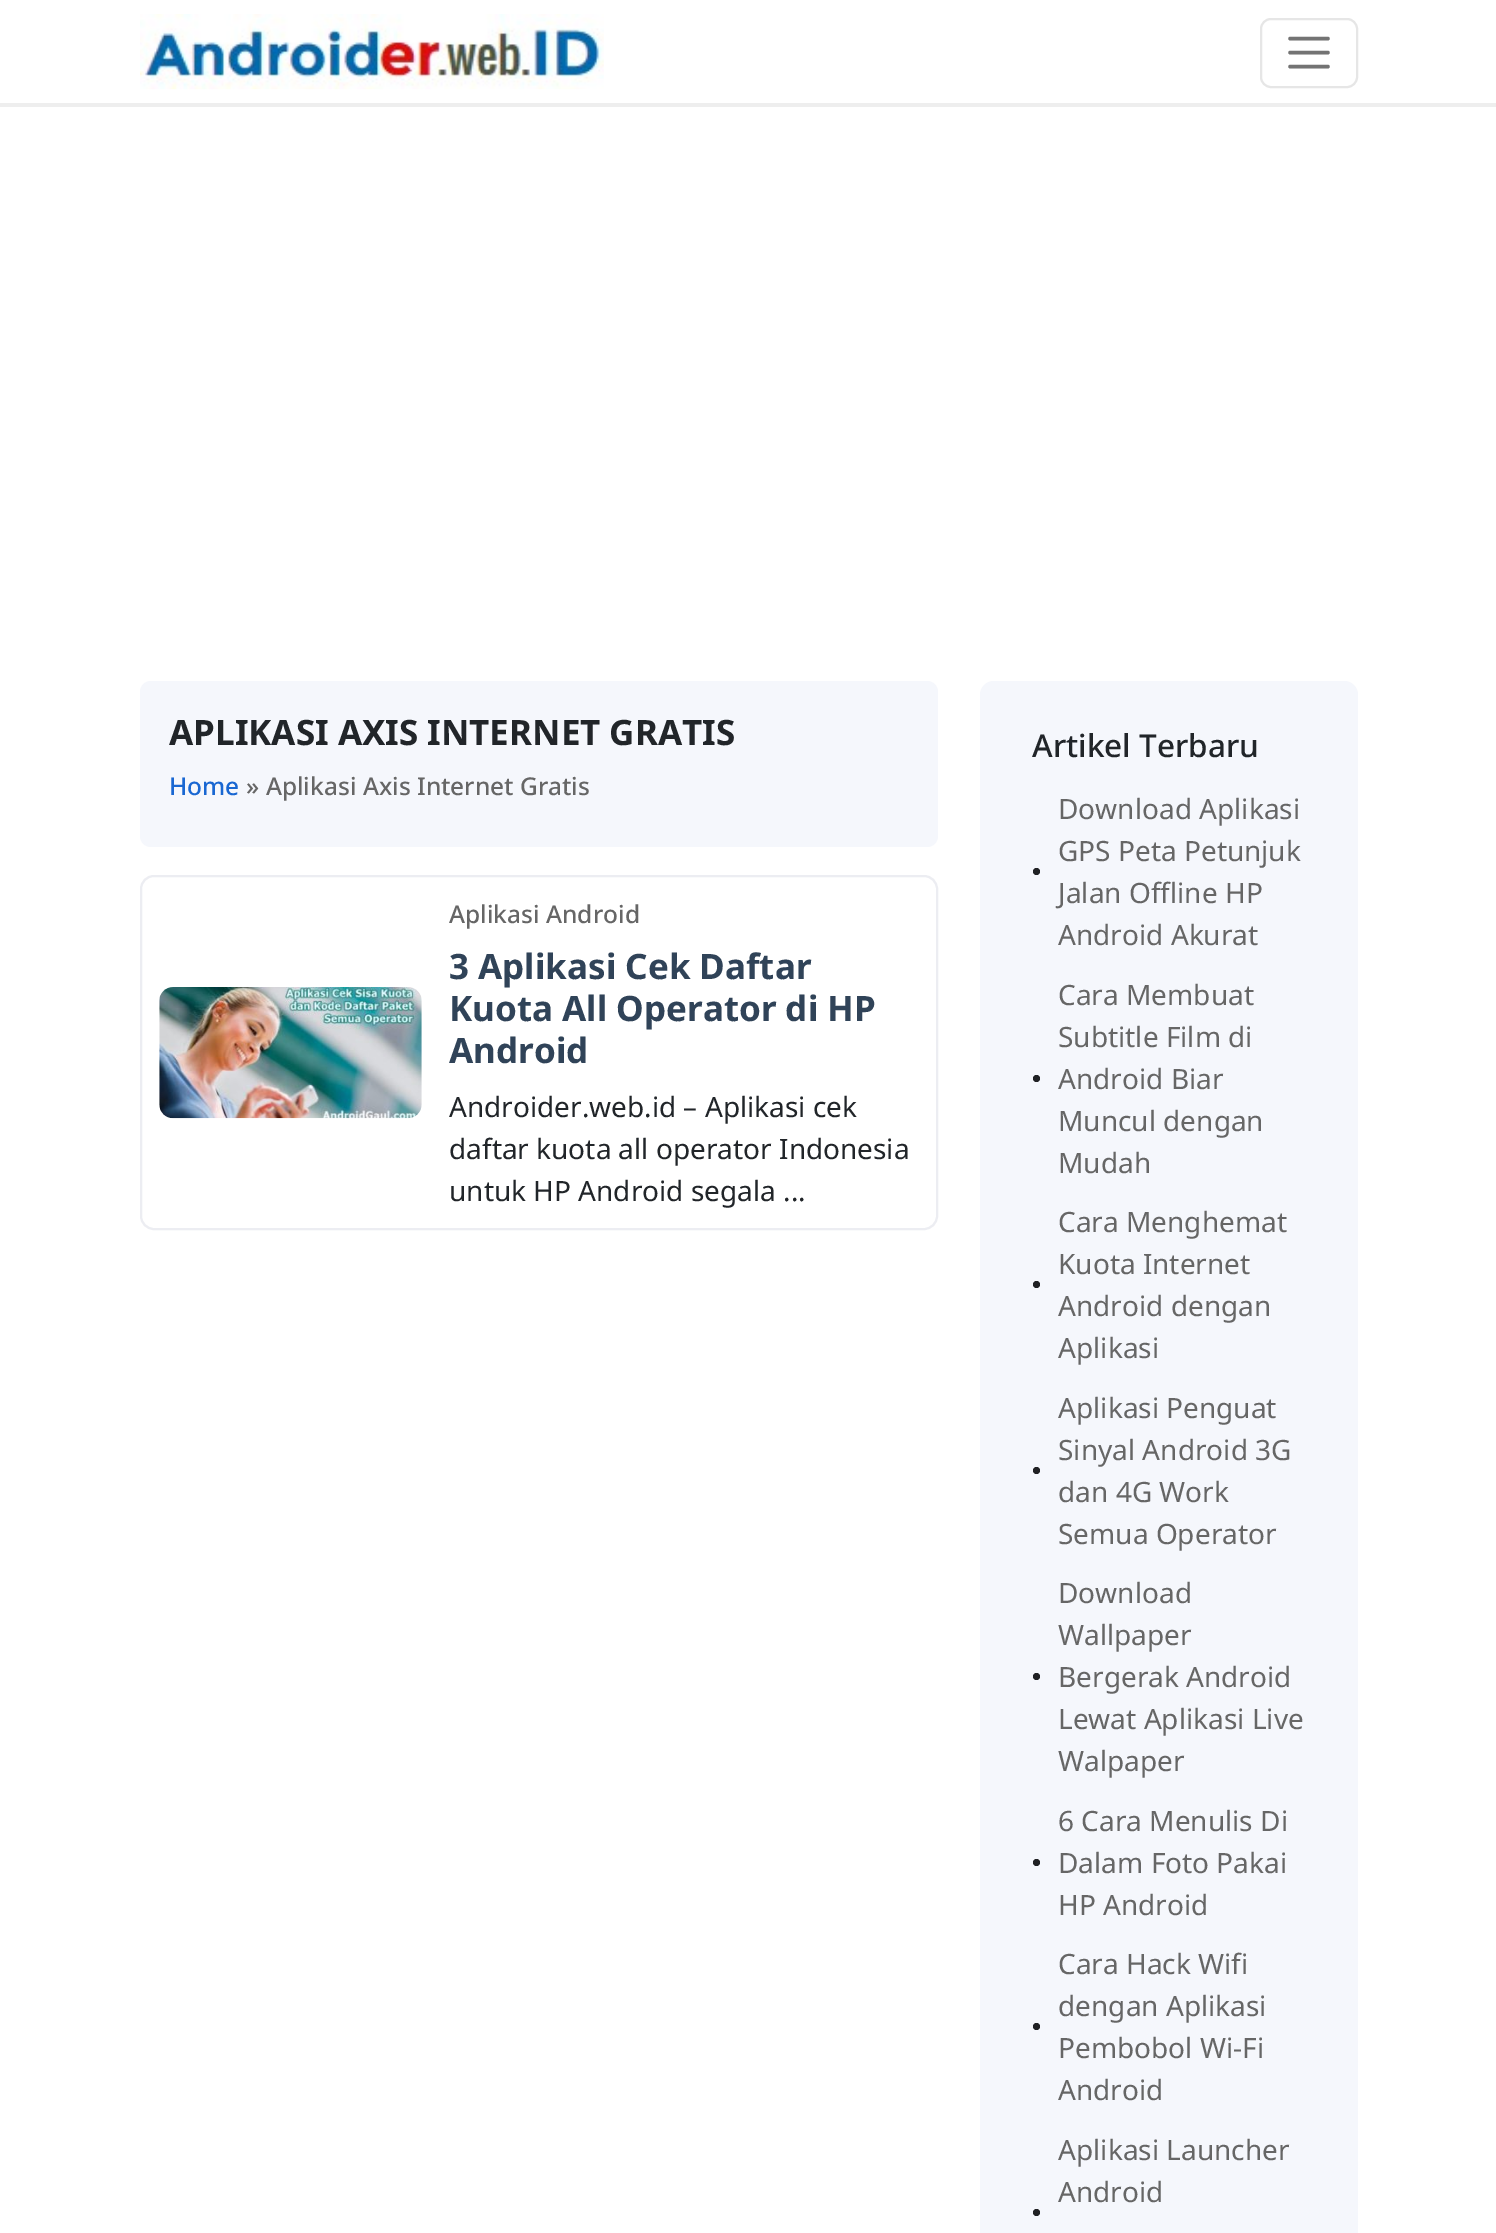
%!PS
<< /PageSize [1496 2233] >> setpagedevice
/mt/moveto load def
/li/lineto load def
/fl/fill load def
/st/stroke load def
/lw/setlinewidth load def
/co { dup -16 bitshift 255 div exch dup -8 bitshift 255 and 255 div exch 255 and 255 div setrgbcolor } def
/fn { [ exch dup neg 0 0 3 -1 roll 0 0 ] selectfont } def
/tx { co fn moveto show } def
/bx { co rectfill } def
/ci { newpath 0 360 arc closepath } def
/rr { 5 dict begin { /r /h /w /y /x } { exch def } forall
  x r add y moveto x w add y 2 copy h add r arct x w add y h add x 1 index r arct
  x y h add x y r arct x y 2 copy exch w add exch r arct closepath end } def
/im { 5 dict begin { /h /w /y /x /name } { exch def } forall
  gsave x y translate w h scale
  w h 8 [w 0 0 h 0 0] name (r) file false 3 colorimage grestore end } def
0 2233 translate 1 -1 scale
4 setmiterlimit
0 0 1496 2233 16#FFFFFF bx
0 103 1496 4 16#EEEEEE bx
(media/1.raw) 140 14 464 76 im
16#E6E6E6 co
2 lw
1261 19 96 68 10 rr st
16#737373 co
3.5 lw
1 setlinecap
1290 38.5 mt 1328 38.5 li 1290 52.5 mt 1328 52.5 li 1290 66.5 mt 1328 66.5 li st
16#F5F7FC co
140 681 798 166 11 rr fl
16#ECEDF2 co
2 lw
0 setlinecap
141 876 796 353 13 rr st
(media/2.raw) 159 987 263 132 im
16#F5F7FC co
980 681 378 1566 14 rr fl
16#202124 co
1036.5 871.5 3.5 ci fl
1036.5 1078.5 3.5 ci fl
1036.5 1284.5 3.5 ci fl
1036.5 1470.5 3.5 ci fl
1036.5 1676.5 3.5 ci fl
1036.5 1862.5 3.5 ci fl
1036.5 2026.5 3.5 ci fl
1036.5 2212.5 3.5 ci fl
(APLIKASI AXIS INTERNET GRATIS) 169 745 /NotoSans-Bold 35 16#212529 tx
(Home) 169 795 /NotoSans-Medium 24.5 16#1967D2 tx
(» Aplikasi Axis Internet Gratis) 246 795 /NotoSans-Medium 24.5 16#666666 tx
(Aplikasi Android) 449 923 /NotoSans-Medium 24.5 16#666666 tx
(3 Aplikasi Cek Daftar) 449 979 /NotoSans-Bold 35 16#304358 tx
(Kuota All Operator di HP) 449 1021 /NotoSans-Bold 35 16#304358 tx
(Android) 449 1063 /NotoSans-Bold 35 16#304358 tx
(Androider.web.id – Aplikasi cek) 449 1117 /NotoSans-Regular 28 16#212529 tx
(daftar kuota all operator Indonesia) 449 1159 /NotoSans-Regular 28 16#212529 tx
(untuk HP Android segala ...) 449 1201 /NotoSans-Regular 28 16#212529 tx
(Artikel Terbaru) 1032 757 /NotoSans-Medium 31.5 16#212529 tx
(Download Aplikasi) 1058 819 /NotoSans-Regular 28 16#666666 tx
(GPS Peta Petunjuk) 1058 861 /NotoSans-Regular 28 16#666666 tx
(Jalan Offline HP) 1058 903 /NotoSans-Regular 28 16#666666 tx
(Android Akurat) 1058 945 /NotoSans-Regular 28 16#666666 tx
(Cara Membuat) 1058 1005 /NotoSans-Regular 28 16#666666 tx
(Subtitle Film di) 1058 1047 /NotoSans-Regular 28 16#666666 tx
(Android Biar) 1058 1089 /NotoSans-Regular 28 16#666666 tx
(Muncul dengan) 1058 1131 /NotoSans-Regular 28 16#666666 tx
(Mudah) 1058 1173 /NotoSans-Regular 28 16#666666 tx
(Cara Menghemat) 1058 1232 /NotoSans-Regular 28 16#666666 tx
(Kuota Internet) 1058 1274 /NotoSans-Regular 28 16#666666 tx
(Android dengan) 1058 1316 /NotoSans-Regular 28 16#666666 tx
(Aplikasi) 1058 1358 /NotoSans-Regular 28 16#666666 tx
(Aplikasi Penguat) 1058 1418 /NotoSans-Regular 28 16#666666 tx
(Sinyal Android 3G) 1058 1460 /NotoSans-Regular 28 16#666666 tx
(dan 4G Work) 1058 1502 /NotoSans-Regular 28 16#666666 tx
(Semua Operator) 1058 1544 /NotoSans-Regular 28 16#666666 tx
(Download) 1058 1603 /NotoSans-Regular 28 16#666666 tx
(Wallpaper) 1058 1645 /NotoSans-Regular 28 16#666666 tx
(Bergerak Android) 1058 1687 /NotoSans-Regular 28 16#666666 tx
(Lewat Aplikasi Live) 1058 1729 /NotoSans-Regular 28 16#666666 tx
(Walpaper) 1058 1771 /NotoSans-Regular 28 16#666666 tx
(6 Cara Menulis Di) 1058 1831 /NotoSans-Regular 28 16#666666 tx
(Dalam Foto Pakai) 1058 1873 /NotoSans-Regular 28 16#666666 tx
(HP Android) 1058 1915 /NotoSans-Regular 28 16#666666 tx
(Cara Hack Wifi) 1058 1974 /NotoSans-Regular 28 16#666666 tx
(dengan Aplikasi) 1058 2016 /NotoSans-Regular 28 16#666666 tx
(Pembobol Wi-Fi) 1058 2058 /NotoSans-Regular 28 16#666666 tx
(Android) 1058 2100 /NotoSans-Regular 28 16#666666 tx
(Aplikasi Launcher) 1058 2160 /NotoSans-Regular 28 16#666666 tx
(Android) 1058 2202 /NotoSans-Regular 28 16#666666 tx
showpage
